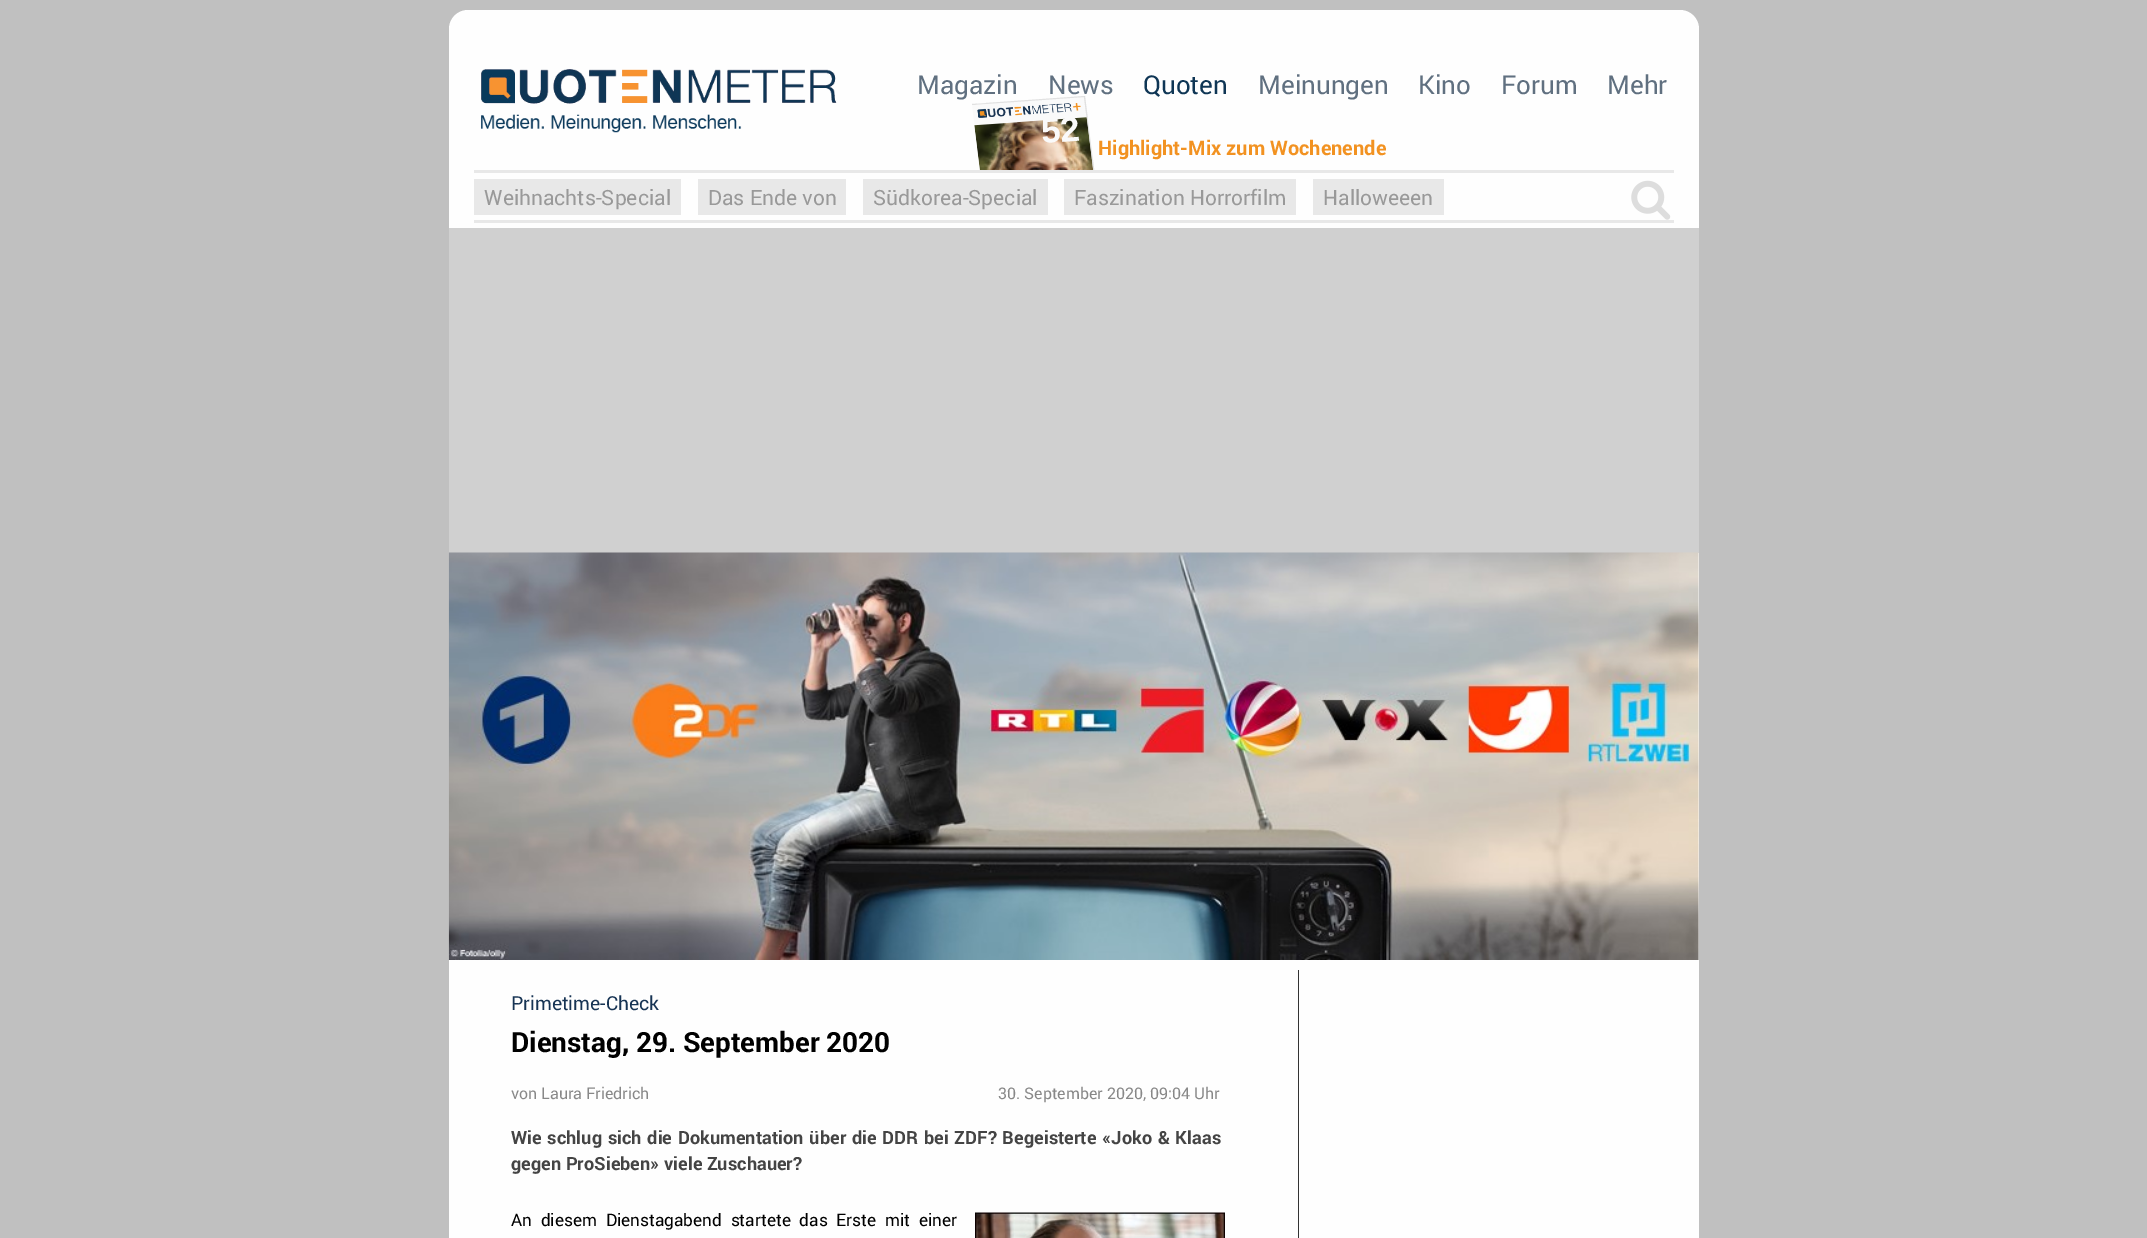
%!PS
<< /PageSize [2147 1238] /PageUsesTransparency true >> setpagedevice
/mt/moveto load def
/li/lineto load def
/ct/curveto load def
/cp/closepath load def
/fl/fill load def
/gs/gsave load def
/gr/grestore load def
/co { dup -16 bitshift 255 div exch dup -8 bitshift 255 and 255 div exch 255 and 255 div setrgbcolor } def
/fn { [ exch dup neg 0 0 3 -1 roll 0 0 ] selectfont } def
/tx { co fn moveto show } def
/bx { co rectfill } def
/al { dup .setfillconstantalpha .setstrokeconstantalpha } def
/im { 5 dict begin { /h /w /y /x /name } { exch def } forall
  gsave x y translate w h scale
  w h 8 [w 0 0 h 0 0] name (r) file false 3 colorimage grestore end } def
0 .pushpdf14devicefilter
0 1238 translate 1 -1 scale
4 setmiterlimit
0 0 2147 1238 16#C0C0C0 bx
449 170 1250 1068 16#FEFEFE bx
468 10 mt 1680 10 li 1690.5 10 1699 18.5 1699 29 ct 1699 170 li 449 170 li 449 29 li 449 18.5 457.5 10 468 10 ct cp fl
(media/1.raw) 481 69 356 64 im
gs
968 93 418 82 rectclip
16#FAFAFA co
972 104 mt 1085 96 li 1102 232 li 988 240 li cp fl
gr
16#E1E1E1 co
972 104 mt 1085 96 li 1084 97 li 972 105 li cp fl
gs
968 93 418 82 rectclip
0.1 al
16#000000 co
1085 96 mt 1102 232 li 1101 232 li 1084 97 li cp fl
gr
(media/2.raw) 977 103 104 15 im
(media/3.raw) 974 117 119 53 im
980 173 115 2 16#FEFEFE bx
474 170 1200 3 16#E8E8E8 bx
474 220 1200 3 16#E8E8E8 bx
474 179 207 36 16#E8E8E8 bx
698 179 148 36 16#E8E8E8 bx
863 179 185 36 16#E8E8E8 bx
1064 179 232 36 16#E8E8E8 bx
1313 179 131 36 16#E8E8E8 bx
(media/4.raw) 1631 180 40 40 im
449 228 1250 325 16#D0D0D0 bx
(media/5.raw) 448 552 1251 408 im
(media/6.raw) 975 1212 250 26 im
1298 970 1 268 16#333333 bx
(Magazin) 917 94 /Roboto-Regular 26 16#607080 tx
(News) 1048 94 /Roboto-Regular 26 16#607080 tx
(Quoten) 1143 94 /Roboto-Regular 26 16#0F3655 tx
(Meinungen) 1258 94 /Roboto-Regular 26 16#607080 tx
(Kino) 1418 94 /Roboto-Regular 26 16#607080 tx
(Forum) 1501 94 /Roboto-Regular 26 16#607080 tx
(Mehr) 1607 94 /Roboto-Regular 26 16#607080 tx
/LiberationSans-Bold 35 fn
16#FAFAFA co
gs 1042 143 translate -4 rotate 0 0 mt (52) show gr
(Highlight-Mix zum Wochenende) 1098 155 /Roboto-Bold 20 16#F29221 tx
(Weihnachts-Special) 484 205 /Roboto-Regular 21 16#999999 tx
(Das Ende von) 708 205 /Roboto-Regular 21 16#999999 tx
(Südkorea-Special) 873 205 /Roboto-Regular 21 16#999999 tx
(Faszination Horrorfilm) 1074 205 /Roboto-Regular 21 16#999999 tx
(Halloweeen) 1323 205 /Roboto-Regular 21 16#999999 tx
(Primetime-Check) 511 1010 /Roboto-Regular 19.25 16#173454 tx
(Dienstag, 29. September 2020) 511 1052 /Roboto-Bold 27.8 16#000000 tx
(von Laura Friedrich) 511 1099 /Roboto-Regular 16 16#888888 tx
(30. September 2020, 09:04 Uhr) 998 1099 /Roboto-Regular 16 16#888888 tx
/Roboto-Bold 18.2 fn
16#444444 co
511 1144 mt 1.25 0 32 (Wie schlug sich die Dokumentation über die DDR bei ZDF? Begeisterte «Joko & Klaas) widthshow
(gegen ProSieben» viele Zuschauer?) 511 1170 /Roboto-Bold 18.2 16#444444 tx
/Roboto-Regular 17.15 fn
16#000000 co
511 1226 mt 4.5 0 32 (An diesem Dienstagabend startete das Erste mit einer) widthshow
.poppdf14devicefilter showpage
